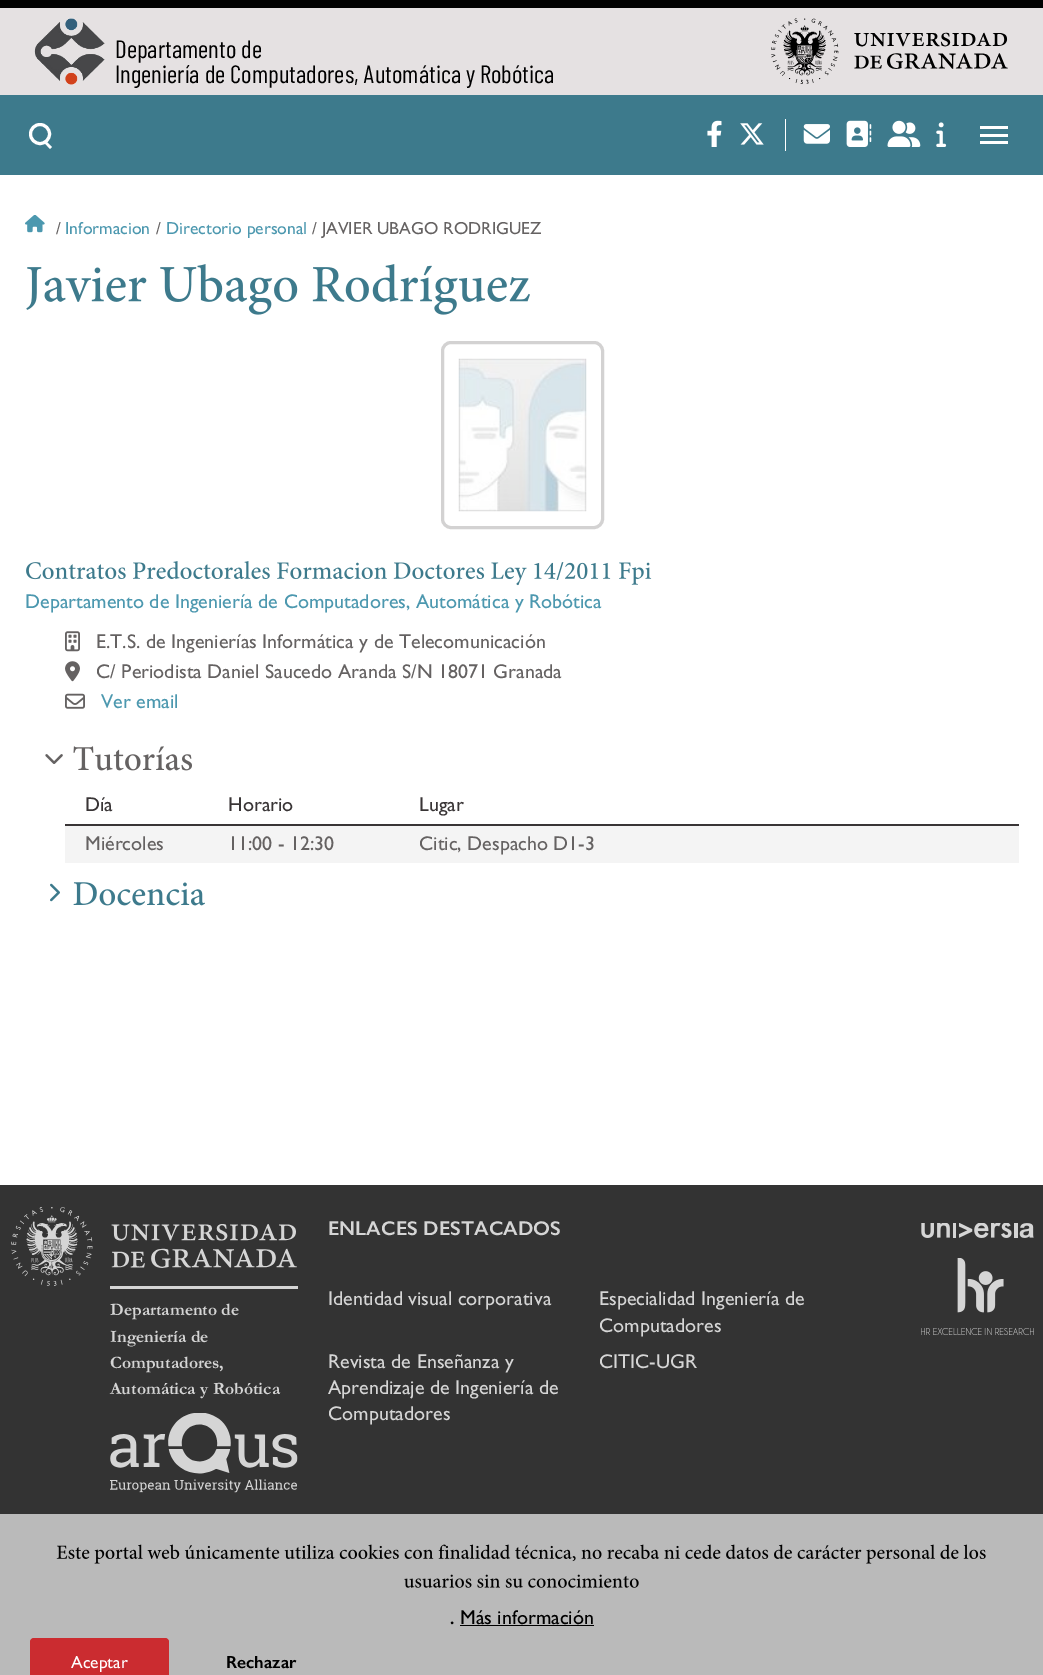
%!PS
<< /PageSize [1043 1675] >> setpagedevice
/mt/moveto load def
/li/lineto load def
/cp/closepath load def
/fl/fill load def
/st/stroke load def
/lw/setlinewidth load def
/co { dup -16 bitshift 255 div exch dup -8 bitshift 255 and 255 div exch 255 and 255 div setrgbcolor } def
/fn { [ exch dup neg 0 0 3 -1 roll 0 0 ] selectfont } def
/tx { co fn moveto show } def
/bx { co rectfill } def
/ci { newpath 0 360 arc closepath } def
/rr { 5 dict begin { /r /h /w /y /x } { exch def } forall
  x r add y moveto x w add y 2 copy h add r arct x w add y h add x 1 index r arct
  x y h add x y r arct x y 2 copy exch w add exch r arct closepath end } def
/im { 5 dict begin { /h /w /y /x /name } { exch def } forall
  gsave x y translate w h scale
  w h 8 [w 0 0 h 0 0] name (r) file false 3 colorimage grestore end } def
0 1675 translate 1 -1 scale
4 setmiterlimit
0 0 1043 1675 16#FFFFFF bx
0 0 1043 8 16#010101 bx
0 95 1043 80 16#3D7A8C bx
0 8 1043 87 16#E5E1E2 bx
(media/1.raw) 34 18 71 67 im
(media/2.raw) 771 18 237 66 im
16#FFFFFF co
3 lw
40 134 9.5 ci st
46 141 mt 52 147 li 50 149 li 44.5 143 li cp fl
(media/3.raw) 707 120 15 27 im
(media/4.raw) 740 123 24 22 im
785 119 1 32 16#FFFFFF bx
(media/5.raw) 803 124 27 20 im
(media/6.raw) 846 120 26 27 im
(media/7.raw) 887 120 34 27 im
(media/8.raw) 936 122 11 25 im
980 134 28 3 16#FFFFFF bx
980 126 28 3 16#FFFFFF bx
980 141 28 3 16#FFFFFF bx
(media/9.raw) 25 215 20 18 im
(media/10.raw) 26 264 504 51 im
16#D3D2D2 co
442.5 342.5 160 185 8.5 rr st
(media/11.raw) 458 358 129 154 im
(media/12.raw) 26 561 626 25 im
(media/13.raw) 65 631 15 21 im
(media/14.raw) 65 661 15 21 im
(media/15.raw) 65 693 20 16 im
(media/16.raw) 45 754 18 10 im
(media/17.raw) 73 746 119 25 im
65 824 954 2 16#393536 bx
65 826 954 37 16#F4F4F4 bx
(media/18.raw) 50 883 10 19 im
(media/19.raw) 73 882 132 24 im
0 1185 1043 329 16#333333 bx
(media/20.raw) 921 1223 113 15 im
(media/21.raw) 921 1258 113 78 im
(media/22.raw) 11 1207 286 79 im
110 1286 188 3 16#D5D5D5 bx
(media/23.raw) 110 1413 188 80 im
0 1514 1043 161 16#BABABA bx
(media/24.raw) 56 1544 930 20 im
(media/25.raw) 404 1574 235 14 im
460 1625 134 1 16#000000 bx
16#CB2C30 co
30 1638 139 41 4 rr fl
(Departamento de) 115 58 /BarlowCondensed-Regular 25 16#000000 tx
(Ingeniería de Computadores, Automática y Robótica) 115 83 /BarlowCondensed-Regular 25 16#000000 tx
(/) 56 234 /GillSans-Regular 17.5 16#656262 tx
(Informacion) 65 234 /GillSans-Regular 17.5 16#4C98AF tx
(/) 156 234 /GillSans-Regular 17.5 16#656262 tx
(Directorio personal) 166 234 /GillSans-Regular 17.5 16#4C98AF tx
(/ JAVIER UBAGO RODRIGUEZ) 312 234 /GillSans-Regular 17.5 16#656262 tx
(Departamento de Ingeniería de Computadores, Automática y Robótica) 25 608 /GillSans-Regular 20 16#4C98AF tx
(E.T.S. de Ingenierías Informática y de Telecomunicación) 96 648 /GillSans-Regular 20 16#656262 tx
(C/ Periodista Daniel Saucedo Aranda S/N 18071 Granada) 96 678 /GillSans-Regular 20 16#656262 tx
(Ver email) 101 708 /GillSans-Regular 20 16#4C98AF tx
(Día) 85 811 /GillSans-Regular 20 16#393536 tx
(Horario) 228 811 /GillSans-Regular 20 16#393536 tx
(Lugar) 419 811 /GillSans-Regular 20 16#393536 tx
(Miércoles) 85 850 /GillSans-Regular 20 16#656262 tx
(11:00 - 12:30) 228 850 /GillSans-Regular 20 16#656262 tx
(Citic, Despacho D1-3) 419 850 /GillSans-Regular 20 16#656262 tx
(ENLACES DESTACADOS) 328 1235 /GillSans-SemiBold 20 16#D5D5D5 tx
(Identidad visual corporativa) 328 1305 /GillSans-Regular 20 16#D5D5D5 tx
(Especialidad Ingeniería de) 599 1305 /GillSans-Regular 20 16#D5D5D5 tx
(Computadores) 599 1332 /GillSans-Regular 20 16#D5D5D5 tx
(Revista de Enseñanza y) 328 1368 /GillSans-Regular 20 16#D5D5D5 tx
(Aprendizaje de Ingeniería de) 328 1394 /GillSans-Regular 20 16#D5D5D5 tx
(Computadores) 328 1420 /GillSans-Regular 20 16#D5D5D5 tx
(CITIC-UGR) 599 1368 /GillSans-Regular 20 16#D5D5D5 tx
(Departamento de) 110 1315 /Garamond-Bold 17.5 16#D5D5D5 tx
(Ingeniería de) 110 1342 /Garamond-Bold 17.5 16#D5D5D5 tx
(Computadores,) 110 1368 /Garamond-Bold 17.5 16#D5D5D5 tx
(Automática y Robótica) 110 1394 /Garamond-Bold 17.5 16#D5D5D5 tx
(.) 450 1624 /GillSans-SemiBold 17.5 16#000000 tx
(Más información) 460 1624 /GillSans-Regular 20 16#000000 tx
(Aceptar) 71 1668 /GillSans-Regular 17.5 16#FFFFFF tx
(Rechazar) 226 1668 /GillSans-SemiBold 17.5 16#000000 tx
showpage
